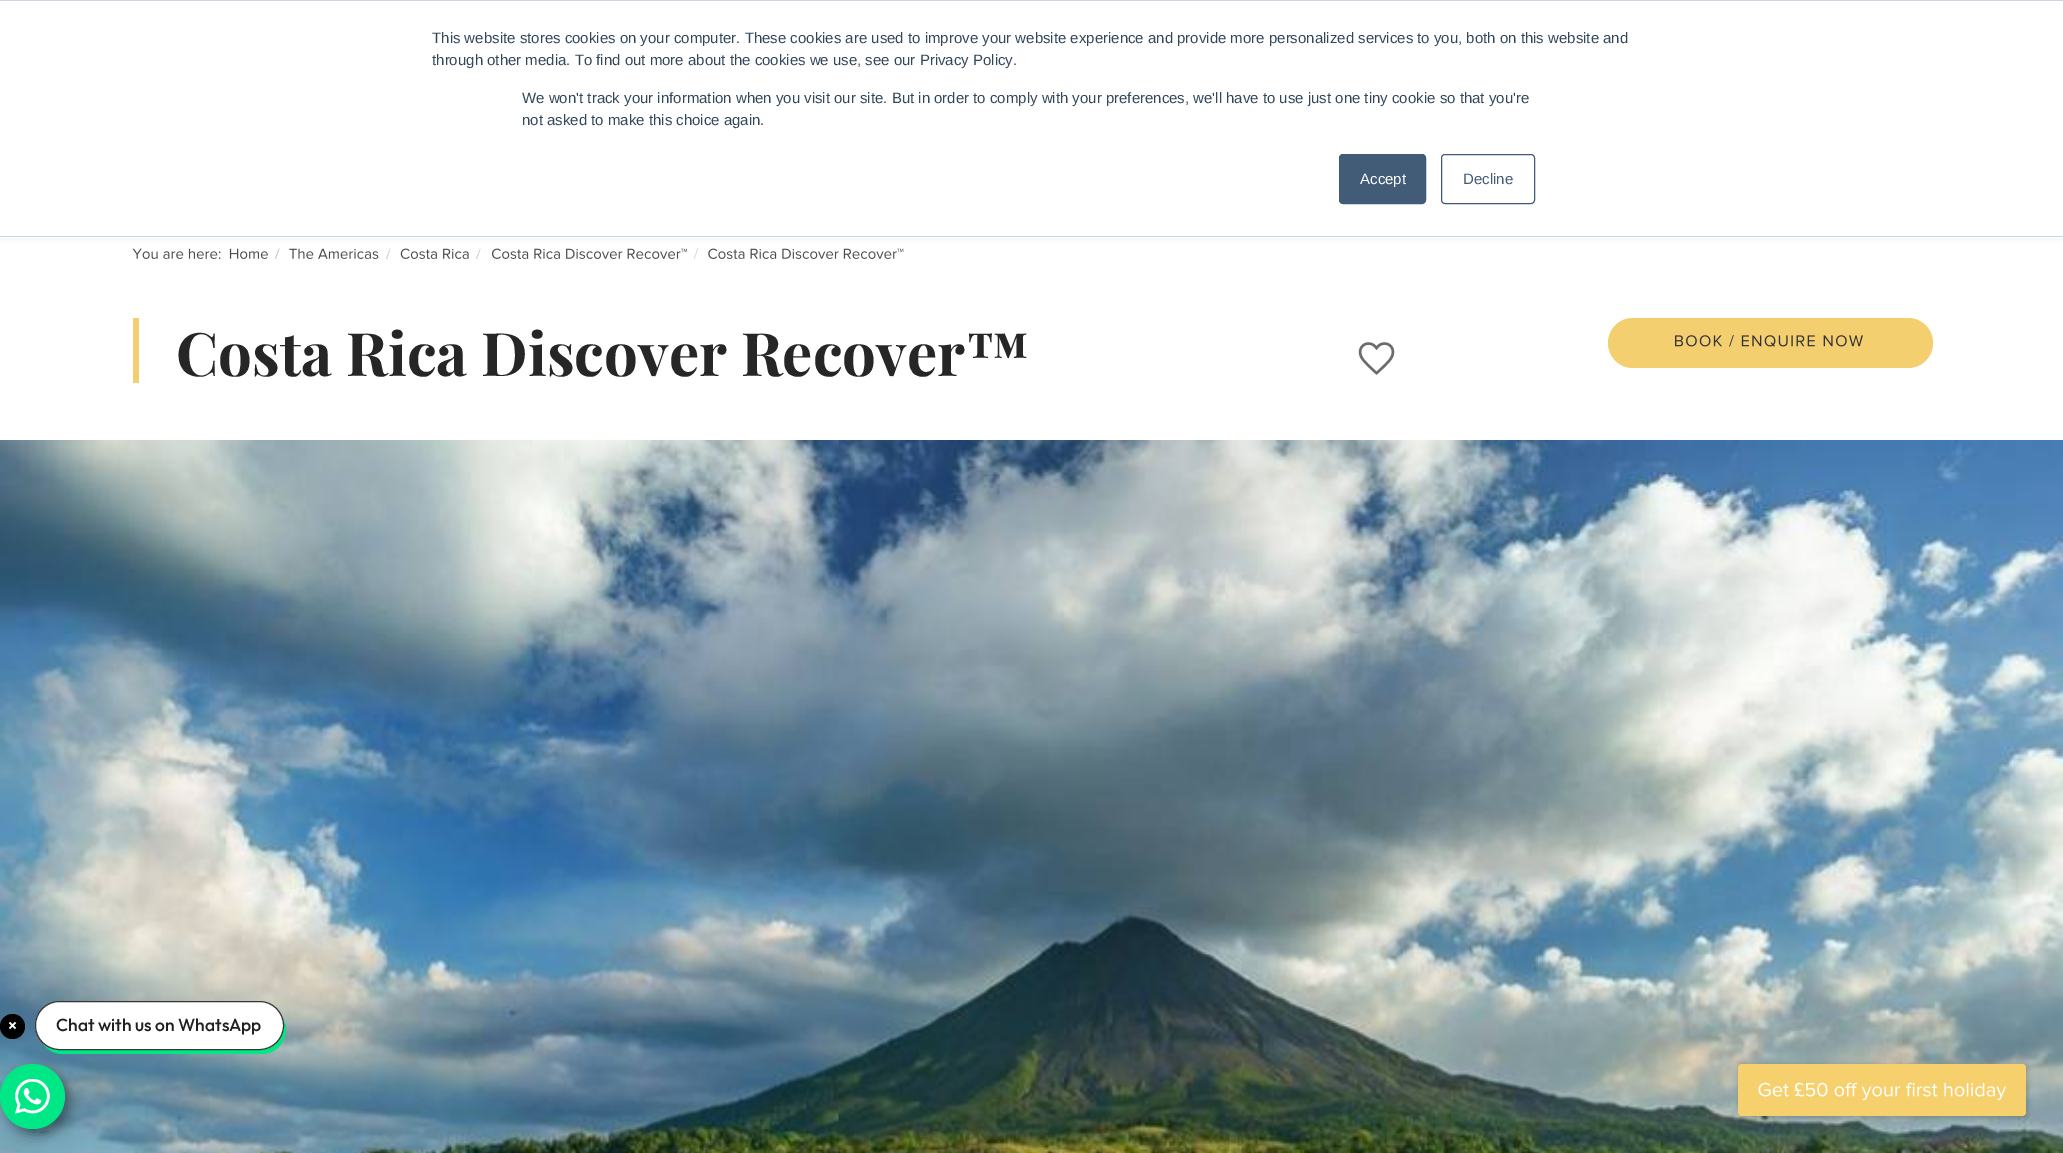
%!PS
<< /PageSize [2063 1153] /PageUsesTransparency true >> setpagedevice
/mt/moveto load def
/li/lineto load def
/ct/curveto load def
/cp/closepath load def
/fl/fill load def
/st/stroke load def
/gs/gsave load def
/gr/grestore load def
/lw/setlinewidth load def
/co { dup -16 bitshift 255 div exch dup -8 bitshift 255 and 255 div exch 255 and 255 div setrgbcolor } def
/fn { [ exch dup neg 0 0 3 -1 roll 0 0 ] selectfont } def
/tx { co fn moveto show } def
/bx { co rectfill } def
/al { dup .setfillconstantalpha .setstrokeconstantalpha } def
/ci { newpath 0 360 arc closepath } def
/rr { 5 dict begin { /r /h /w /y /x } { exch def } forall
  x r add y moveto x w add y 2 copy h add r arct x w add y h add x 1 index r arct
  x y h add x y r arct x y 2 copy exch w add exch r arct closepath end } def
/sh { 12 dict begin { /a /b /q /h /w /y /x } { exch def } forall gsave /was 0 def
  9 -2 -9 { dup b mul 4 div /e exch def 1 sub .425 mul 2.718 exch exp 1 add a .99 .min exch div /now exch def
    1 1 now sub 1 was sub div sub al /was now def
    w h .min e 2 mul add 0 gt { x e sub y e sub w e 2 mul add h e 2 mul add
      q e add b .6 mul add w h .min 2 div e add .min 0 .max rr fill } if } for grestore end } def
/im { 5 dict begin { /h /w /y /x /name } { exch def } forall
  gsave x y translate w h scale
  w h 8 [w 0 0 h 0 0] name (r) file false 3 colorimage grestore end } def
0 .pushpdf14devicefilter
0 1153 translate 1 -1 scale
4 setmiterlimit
0 0 2063 1153 16#FFFFFF bx
(media/1.raw) 132 248 89 11 im
(media/2.raw) 229 248 39 11 im
16#CCCCCC co
276 259 mt 275 259 li 278.5 248.5 li 279.5 248.5 li cp fl
(media/3.raw) 289 248 90 11 im
387 259 mt 386 259 li 390 248.5 li 390.5 248.5 li cp fl
(media/4.raw) 400 248 69 11 im
477 259 mt 476 259 li 480 248.5 li 480.5 248.5 li cp fl
(media/5.raw) 492 248 196 11 im
694.5 259 mt 694 259 li 697.5 248.5 li 698 248.5 li cp fl
(media/6.raw) 708 248 196 11 im
16#EAF0F6 co
0 1 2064 238 0 3 1 sh
0 1 2063 237 16#FFFFFF bx
0 0 2063 1 16#CBD6E2 bx
0 236 2063 1 16#CBD6E2 bx
16#425B76 co
1339.5 154.5 86 49 3.5 rr gs fl gr
st
1441.5 154.5 93 49 3.5 rr st
133 318 6 65 16#F4CF70 bx
(media/7.raw) 1358 342 37 33 im
1608 318 325 50 25 rr fl
(media/8.raw) 1675 335 188 12 im
(media/9.raw) 0 440 2063 713 im
16#000000 co
12.5 1026.5 12.5 ci fl
16#FFFFFF co
1.7 lw
9.5 1022.5 mt 15.5 1028.5 li 9.5 1028.5 mt 15.5 1022.5 li st
16#000000 co
5 1070 65 65 32.5 6 .4 sh
16#00E785 co
42 1042 mt 46 1049 54 1054 62 1054 ct 262 1054 li 275 1054 286 1043 286 1030 ct 286 1024 284 1019 281 1015 ct 283 1018 284 1022 284 1026 ct 284 1039 273 1050 259 1050 ct 59 1050 li 52 1050 46 1047 42 1042 ct cp fl
16#FFFFFF co
35.5 1001.5 248 48 24 rr gs fl gr
16#363636 co
1 lw
st
16#00E785 co
32.5 1096.5 32.5 ci fl
(media/10.raw) 15 1079 35 35 im
16#000000 co
1739 1065 289 53 4 3 .2 sh
16#F5D06C co
1738 1064 288 52 4 rr fl
(media/11.raw) 1758 1082 248 19 im
(This website stores cookies on your computer. These cookies are used to improve your website experience and provide more personalized services to you, both on this website and) 432 43 /LiberationSans-Regular 15 16#33475B tx
(through other media. To find out more about the cookies we use, see our Privacy Policy.) 432 65 /LiberationSans-Regular 15 16#33475B tx
(We won't track your information when you visit our site. But in order to comply with your preferences, we'll have to use just one tiny cookie so that you're) 522 103 /LiberationSans-Regular 15 16#33475B tx
(not asked to make this choice again.) 522 125 /LiberationSans-Regular 15 16#33475B tx
(Accept) 1360 184 /LiberationSans-Regular 15 16#FFFFFF tx
(Decline) 1463 184 /LiberationSans-Regular 15 16#425B76 tx
(Costa Rica Discover Recover™) 176 376 /PlayfairDisplay-Bold 60 16#262626 tx
(Chat with us on WhatsApp) 56 1031 /Outfit-Medium 17.5 16#202020 tx
.poppdf14devicefilter showpage
